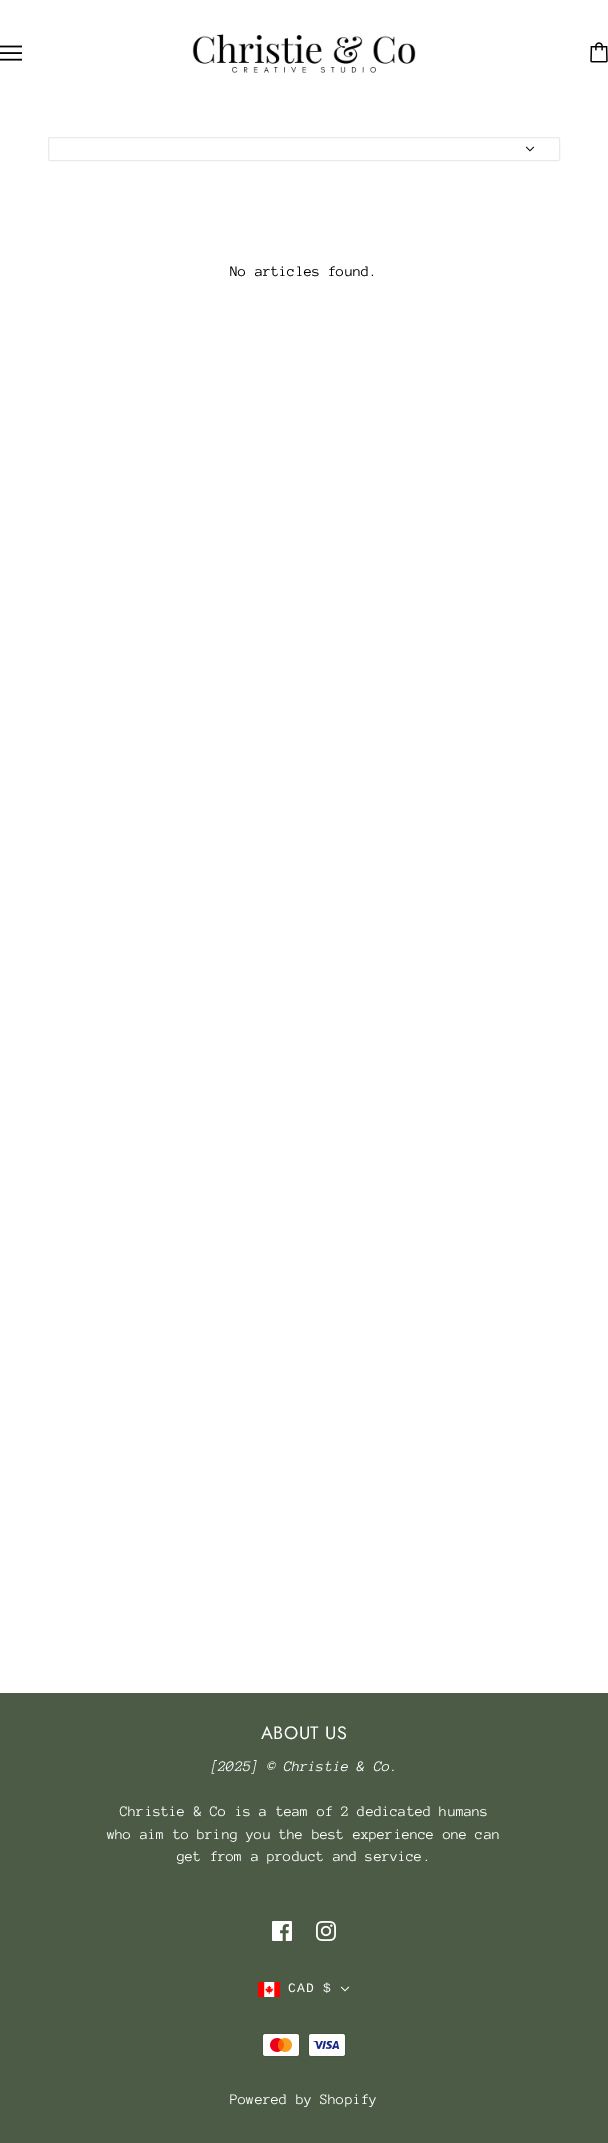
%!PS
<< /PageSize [608 2143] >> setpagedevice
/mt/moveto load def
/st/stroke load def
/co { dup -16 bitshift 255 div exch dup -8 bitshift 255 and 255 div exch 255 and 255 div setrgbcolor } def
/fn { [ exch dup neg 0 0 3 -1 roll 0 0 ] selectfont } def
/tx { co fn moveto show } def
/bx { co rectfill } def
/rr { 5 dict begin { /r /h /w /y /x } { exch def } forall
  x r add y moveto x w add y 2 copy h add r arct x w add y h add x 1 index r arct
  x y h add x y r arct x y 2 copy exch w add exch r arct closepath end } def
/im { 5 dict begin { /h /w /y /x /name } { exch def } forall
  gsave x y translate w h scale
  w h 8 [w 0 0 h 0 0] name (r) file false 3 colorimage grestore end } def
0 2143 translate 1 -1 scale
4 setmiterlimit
0 0 608 2143 16#FFFFFF bx
(media/1.raw) 0 45 22 16 im
(media/2.raw) 192 34 224 39 im
(media/3.raw) 590 42 18 21 im
16#EAEAEA co
48.5 137.5 511 23 1.5 rr st
(media/4.raw) 525 146 10 6 im
0 1693 608 450 16#4C5B45 bx
(media/5.raw) 272 1921 20 20 im
(media/6.raw) 316 1921 20 20 im
(media/7.raw) 258 1982 22 15 im
(media/8.raw) 340 1986 10 6 im
(media/9.raw) 262 2033 38 24 im
(media/10.raw) 308 2033 38 24 im
(No articles found.) 230 276 /AnonymousPro-Regular 15 16#000000 tx
/Jost-Regular 18 fn
16#FFFFFF co
261 1739 mt .5 0 (ABOUT US) ashow
([2025] © Christie & Co.) 210 1771 /AnonymousPro-Italic 15 16#FFFFFF tx
(Christie & Co is a team of 2 dedicated humans) 120 1816 /AnonymousPro-Regular 15 16#FFFFFF tx
(who aim to bring you the best experience one can) 107 1839 /AnonymousPro-Regular 15 16#FFFFFF tx
(get from a product and service.) 177 1861 /AnonymousPro-Regular 15 16#FFFFFF tx
/LiberationMono-Regular 13 fn
288 1992 mt 1 0 (CAD $) ashow
(Powered by Shopify) 230 2104 /AnonymousPro-Regular 15 16#FFFFFF tx
showpage
